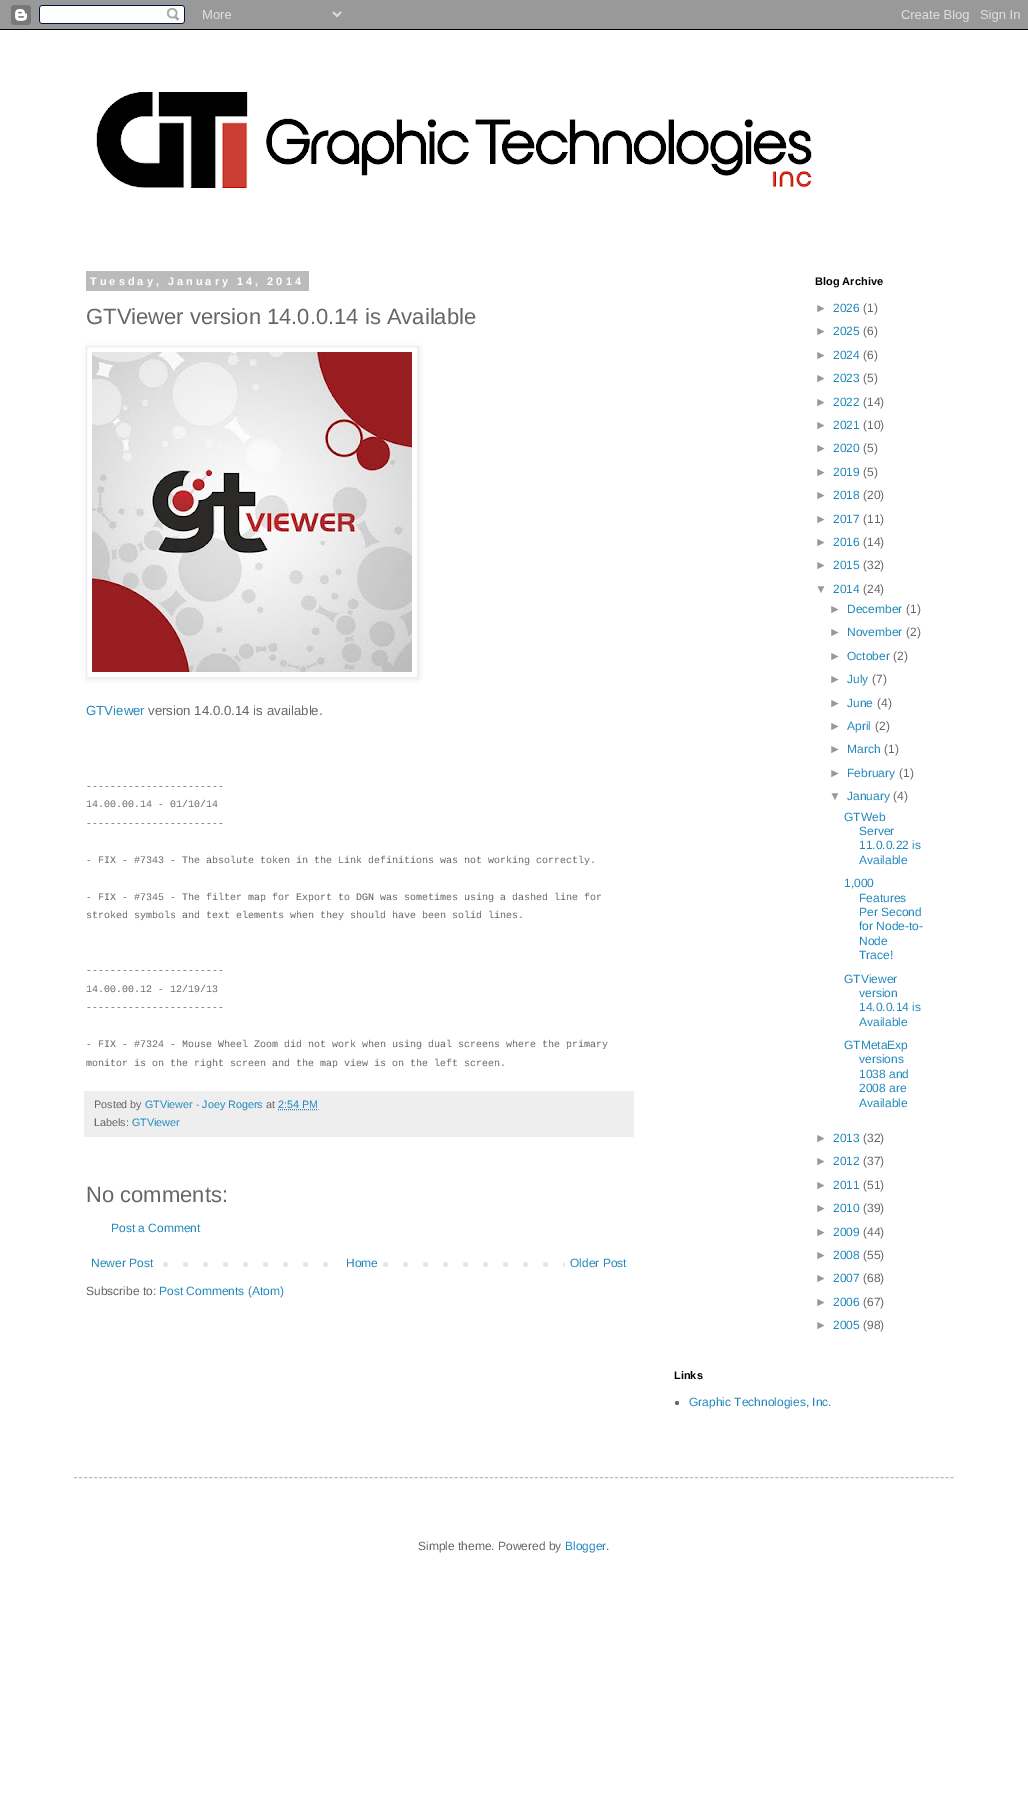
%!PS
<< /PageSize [1028 1808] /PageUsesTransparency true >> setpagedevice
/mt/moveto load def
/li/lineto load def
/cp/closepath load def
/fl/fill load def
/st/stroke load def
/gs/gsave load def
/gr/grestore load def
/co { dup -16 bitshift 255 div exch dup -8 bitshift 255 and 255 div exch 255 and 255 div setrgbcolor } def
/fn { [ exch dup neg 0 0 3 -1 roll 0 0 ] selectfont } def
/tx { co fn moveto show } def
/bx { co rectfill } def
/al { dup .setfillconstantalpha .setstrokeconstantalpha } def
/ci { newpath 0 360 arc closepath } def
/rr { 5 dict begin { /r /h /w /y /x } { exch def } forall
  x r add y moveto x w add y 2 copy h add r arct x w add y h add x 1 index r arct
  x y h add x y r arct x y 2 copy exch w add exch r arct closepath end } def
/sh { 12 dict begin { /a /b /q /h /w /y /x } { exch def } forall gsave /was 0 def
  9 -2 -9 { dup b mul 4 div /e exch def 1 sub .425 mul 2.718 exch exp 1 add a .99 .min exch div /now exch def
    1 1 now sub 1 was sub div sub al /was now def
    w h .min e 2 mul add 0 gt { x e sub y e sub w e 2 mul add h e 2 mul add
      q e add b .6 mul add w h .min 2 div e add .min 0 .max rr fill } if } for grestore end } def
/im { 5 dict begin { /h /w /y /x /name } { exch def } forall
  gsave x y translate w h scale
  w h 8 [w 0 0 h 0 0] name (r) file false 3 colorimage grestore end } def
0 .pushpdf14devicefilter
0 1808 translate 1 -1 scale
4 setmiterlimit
0 0 1028 1808 16#FFFFFF bx
(media/1.raw) 0 0 1028 30 im
(media/2.raw) 96 92 716 96 im
86 271 223 20 16#BBBBBB bx
gs
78 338 mt 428 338 li 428 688 li 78 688 li cp 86 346 mt 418 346 li 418 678 li 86 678 li cp eoclip newpath
16#000000 co
87 347 332 332 0 2.5 .1 sh
gr
16#EEEEEE co
86.5 346.5 331 331 rectstroke
(media/3.raw) 92 352 320 320 im
84 1091 550 46 16#EEEEEE bx
16#2288BB co
[1 1] 0 setdash
278 1109.5 mt 318.5 1109.5 li st
(media/4.raw) 163 1262 402 5 im
343 1262 26 5 16#FFFFFF bx
16#666666 co
677 1403 2 ci fl
16#BBBBBB co
[3 2.01] 0 setdash
74 1477.5 mt 954 1477.5 li st
/LiberationSans-Bold 11 fn
16#FFFFFF co
90 285 mt 3 0 (Tuesday, January 14, 2014) ashow
(GTViewer version 14.0.0.14 is Available) 86 324 /LiberationSans-Regular 22 16#666666 tx
(GTViewer) 86 715 /LiberationSans-Regular 13.25 16#2288BB tx
(version 14.0.0.14 is available.) 148 715 /LiberationSans-Regular 13.25 16#666666 tx
(-----------------------) 86 789 /LiberationMono-Regular 10 16#666666 tx
(14.00.00.14 - 01/10/14) 86 807 /LiberationMono-Regular 10 16#666666 tx
(-----------------------) 86 826 /LiberationMono-Regular 10 16#666666 tx
(- FIX - #7343 - The absolute token in the Link definitions was not working correctly.) 86 863 /LiberationMono-Regular 10 16#666666 tx
(- FIX - #7345 - The filter map for Export to DGN was sometimes using a dashed line for) 86 900 /LiberationMono-Regular 10 16#666666 tx
(stroked symbols and text elements when they should have been solid lines.) 86 918 /LiberationMono-Regular 10 16#666666 tx
(-----------------------) 86 973 /LiberationMono-Regular 10 16#666666 tx
(14.00.00.12 - 12/19/13) 86 992 /LiberationMono-Regular 10 16#666666 tx
(-----------------------) 86 1010 /LiberationMono-Regular 10 16#666666 tx
(- FIX - #7324 - Mouse Wheel Zoom did not work when using dual screens where the primary) 86 1047 /LiberationMono-Regular 10 16#666666 tx
(monitor is on the right screen and the map view is on the left screen.) 86 1066 /LiberationMono-Regular 10 16#666666 tx
(Posted by) 94 1108 /LiberationSans-Regular 10.75 16#666666 tx
(GTViewer - Joey Rogers) 145 1108 /LiberationSans-Regular 10.75 16#2288BB tx
(at) 266 1108 /LiberationSans-Regular 10.75 16#666666 tx
(2:54 PM) 278 1108 /LiberationSans-Regular 10.75 16#2288BB tx
(Labels:) 94 1126 /LiberationSans-Regular 10.75 16#666666 tx
(GTViewer) 132 1126 /LiberationSans-Regular 10.75 16#2288BB tx
(No comments:) 86 1202 /LiberationSans-Regular 22 16#666666 tx
(Post a Comment) 111 1232 /LiberationSans-Regular 12 16#2288BB tx
(Newer Post) 91 1267 /LiberationSans-Regular 12 16#2288BB tx
(Home) 346 1267 /LiberationSans-Regular 12 16#2288BB tx
(Older Post) 570 1267 /LiberationSans-Regular 12 16#2288BB tx
(Subscribe to:) 86 1295 /LiberationSans-Regular 12 16#666666 tx
(Post Comments \(Atom\)) 159 1295 /LiberationSans-Regular 12 16#2288BB tx
(Blog Archive) 815 285 /LiberationSans-Bold 11 16#000000 tx
(►) 815 312 /LiberationSans-Regular 12 16#999999 tx
(2026) 833 312 /LiberationSans-Regular 12 16#2288BB tx
(\(1\)) 863 312 /LiberationSans-Regular 12 16#666666 tx
(►) 815 335 /LiberationSans-Regular 12 16#999999 tx
(2025) 833 335 /LiberationSans-Regular 12 16#2288BB tx
(\(6\)) 863 335 /LiberationSans-Regular 12 16#666666 tx
(►) 815 359 /LiberationSans-Regular 12 16#999999 tx
(2024) 833 359 /LiberationSans-Regular 12 16#2288BB tx
(\(6\)) 863 359 /LiberationSans-Regular 12 16#666666 tx
(►) 815 382 /LiberationSans-Regular 12 16#999999 tx
(2023) 833 382 /LiberationSans-Regular 12 16#2288BB tx
(\(5\)) 863 382 /LiberationSans-Regular 12 16#666666 tx
(►) 815 406 /LiberationSans-Regular 12 16#999999 tx
(2022) 833 406 /LiberationSans-Regular 12 16#2288BB tx
(\(14\)) 863 406 /LiberationSans-Regular 12 16#666666 tx
(►) 815 429 /LiberationSans-Regular 12 16#999999 tx
(2021) 833 429 /LiberationSans-Regular 12 16#2288BB tx
(\(10\)) 863 429 /LiberationSans-Regular 12 16#666666 tx
(►) 815 452 /LiberationSans-Regular 12 16#999999 tx
(2020) 833 452 /LiberationSans-Regular 12 16#2288BB tx
(\(5\)) 863 452 /LiberationSans-Regular 12 16#666666 tx
(►) 815 476 /LiberationSans-Regular 12 16#999999 tx
(2019) 833 476 /LiberationSans-Regular 12 16#2288BB tx
(\(5\)) 863 476 /LiberationSans-Regular 12 16#666666 tx
(►) 815 499 /LiberationSans-Regular 12 16#999999 tx
(2018) 833 499 /LiberationSans-Regular 12 16#2288BB tx
(\(20\)) 863 499 /LiberationSans-Regular 12 16#666666 tx
(►) 815 523 /LiberationSans-Regular 12 16#999999 tx
(2017) 833 523 /LiberationSans-Regular 12 16#2288BB tx
(\(11\)) 863 523 /LiberationSans-Regular 12 16#666666 tx
(►) 815 546 /LiberationSans-Regular 12 16#999999 tx
(2016) 833 546 /LiberationSans-Regular 12 16#2288BB tx
(\(14\)) 863 546 /LiberationSans-Regular 12 16#666666 tx
(►) 815 569 /LiberationSans-Regular 12 16#999999 tx
(2015) 833 569 /LiberationSans-Regular 12 16#2288BB tx
(\(32\)) 863 569 /LiberationSans-Regular 12 16#666666 tx
(▼) 815 593 /LiberationSans-Regular 12 16#999999 tx
(2014) 833 593 /LiberationSans-Regular 12 16#2288BB tx
(\(24\)) 863 593 /LiberationSans-Regular 12 16#666666 tx
(►) 829 613 /LiberationSans-Regular 12 16#999999 tx
(December) 847 613 /LiberationSans-Regular 12 16#2288BB tx
(\(1\)) 906 613 /LiberationSans-Regular 12 16#666666 tx
(►) 829 636 /LiberationSans-Regular 12 16#999999 tx
(November) 847 636 /LiberationSans-Regular 12 16#2288BB tx
(\(2\)) 906 636 /LiberationSans-Regular 12 16#666666 tx
(►) 829 660 /LiberationSans-Regular 12 16#999999 tx
(October) 847 660 /LiberationSans-Regular 12 16#2288BB tx
(\(2\)) 893 660 /LiberationSans-Regular 12 16#666666 tx
(►) 829 683 /LiberationSans-Regular 12 16#999999 tx
(July) 847 683 /LiberationSans-Regular 12 16#2288BB tx
(\(7\)) 872 683 /LiberationSans-Regular 12 16#666666 tx
(►) 829 707 /LiberationSans-Regular 12 16#999999 tx
(June) 847 707 /LiberationSans-Regular 12 16#2288BB tx
(\(4\)) 877 707 /LiberationSans-Regular 12 16#666666 tx
(►) 829 730 /LiberationSans-Regular 12 16#999999 tx
(April) 847 730 /LiberationSans-Regular 12 16#2288BB tx
(\(2\)) 875 730 /LiberationSans-Regular 12 16#666666 tx
(►) 829 753 /LiberationSans-Regular 12 16#999999 tx
(March) 847 753 /LiberationSans-Regular 12 16#2288BB tx
(\(1\)) 884 753 /LiberationSans-Regular 12 16#666666 tx
(►) 829 777 /LiberationSans-Regular 12 16#999999 tx
(February) 847 777 /LiberationSans-Regular 12 16#2288BB tx
(\(1\)) 899 777 /LiberationSans-Regular 12 16#666666 tx
(▼) 829 800 /LiberationSans-Regular 12 16#999999 tx
(January) 847 800 /LiberationSans-Regular 12 16#2288BB tx
(\(4\)) 893 800 /LiberationSans-Regular 12 16#666666 tx
(GTWeb) 844 821 /LiberationSans-Regular 12 16#2288BB tx
(Server) 859 835 /LiberationSans-Regular 12 16#2288BB tx
(11.0.0.22 is) 859 849 /LiberationSans-Regular 12 16#2288BB tx
(Available) 859 864 /LiberationSans-Regular 12 16#2288BB tx
(1,000) 844 887 /LiberationSans-Regular 12 16#2288BB tx
(Features) 859 902 /LiberationSans-Regular 12 16#2288BB tx
(Per Second) 859 916 /LiberationSans-Regular 12 16#2288BB tx
(for Node-to-) 859 930 /LiberationSans-Regular 12 16#2288BB tx
(Node) 859 945 /LiberationSans-Regular 12 16#2288BB tx
(Trace!) 859 959 /LiberationSans-Regular 12 16#2288BB tx
(GTViewer) 844 983 /LiberationSans-Regular 12 16#2288BB tx
(version) 859 997 /LiberationSans-Regular 12 16#2288BB tx
(14.0.0.14 is) 859 1011 /LiberationSans-Regular 12 16#2288BB tx
(Available) 859 1026 /LiberationSans-Regular 12 16#2288BB tx
(GTMetaExp) 844 1049 /LiberationSans-Regular 12 16#2288BB tx
(versions) 859 1063 /LiberationSans-Regular 12 16#2288BB tx
(1038 and) 859 1078 /LiberationSans-Regular 12 16#2288BB tx
(2008 are) 859 1092 /LiberationSans-Regular 12 16#2288BB tx
(Available) 859 1107 /LiberationSans-Regular 12 16#2288BB tx
(►) 815 1142 /LiberationSans-Regular 12 16#999999 tx
(2013) 833 1142 /LiberationSans-Regular 12 16#2288BB tx
(\(32\)) 863 1142 /LiberationSans-Regular 12 16#666666 tx
(►) 815 1165 /LiberationSans-Regular 12 16#999999 tx
(2012) 833 1165 /LiberationSans-Regular 12 16#2288BB tx
(\(37\)) 863 1165 /LiberationSans-Regular 12 16#666666 tx
(►) 815 1189 /LiberationSans-Regular 12 16#999999 tx
(2011) 833 1189 /LiberationSans-Regular 12 16#2288BB tx
(\(51\)) 863 1189 /LiberationSans-Regular 12 16#666666 tx
(►) 815 1212 /LiberationSans-Regular 12 16#999999 tx
(2010) 833 1212 /LiberationSans-Regular 12 16#2288BB tx
(\(39\)) 863 1212 /LiberationSans-Regular 12 16#666666 tx
(►) 815 1236 /LiberationSans-Regular 12 16#999999 tx
(2009) 833 1236 /LiberationSans-Regular 12 16#2288BB tx
(\(44\)) 863 1236 /LiberationSans-Regular 12 16#666666 tx
(►) 815 1259 /LiberationSans-Regular 12 16#999999 tx
(2008) 833 1259 /LiberationSans-Regular 12 16#2288BB tx
(\(55\)) 863 1259 /LiberationSans-Regular 12 16#666666 tx
(►) 815 1282 /LiberationSans-Regular 12 16#999999 tx
(2007) 833 1282 /LiberationSans-Regular 12 16#2288BB tx
(\(68\)) 863 1282 /LiberationSans-Regular 12 16#666666 tx
(►) 815 1306 /LiberationSans-Regular 12 16#999999 tx
(2006) 833 1306 /LiberationSans-Regular 12 16#2288BB tx
(\(67\)) 863 1306 /LiberationSans-Regular 12 16#666666 tx
(►) 815 1329 /LiberationSans-Regular 12 16#999999 tx
(2005) 833 1329 /LiberationSans-Regular 12 16#2288BB tx
(\(98\)) 863 1329 /LiberationSans-Regular 12 16#666666 tx
(Links) 674 1379 /LiberationSans-Bold 11 16#000000 tx
(Graphic Technologies, Inc.) 689 1406 /LiberationSans-Regular 12 16#2288BB tx
(Simple theme. Powered by) 418 1550 /LiberationSans-Regular 12 16#666666 tx
(Blogger) 565 1550 /LiberationSans-Regular 12 16#2288BB tx
(.) 606 1550 /LiberationSans-Regular 12 16#666666 tx
.poppdf14devicefilter showpage
